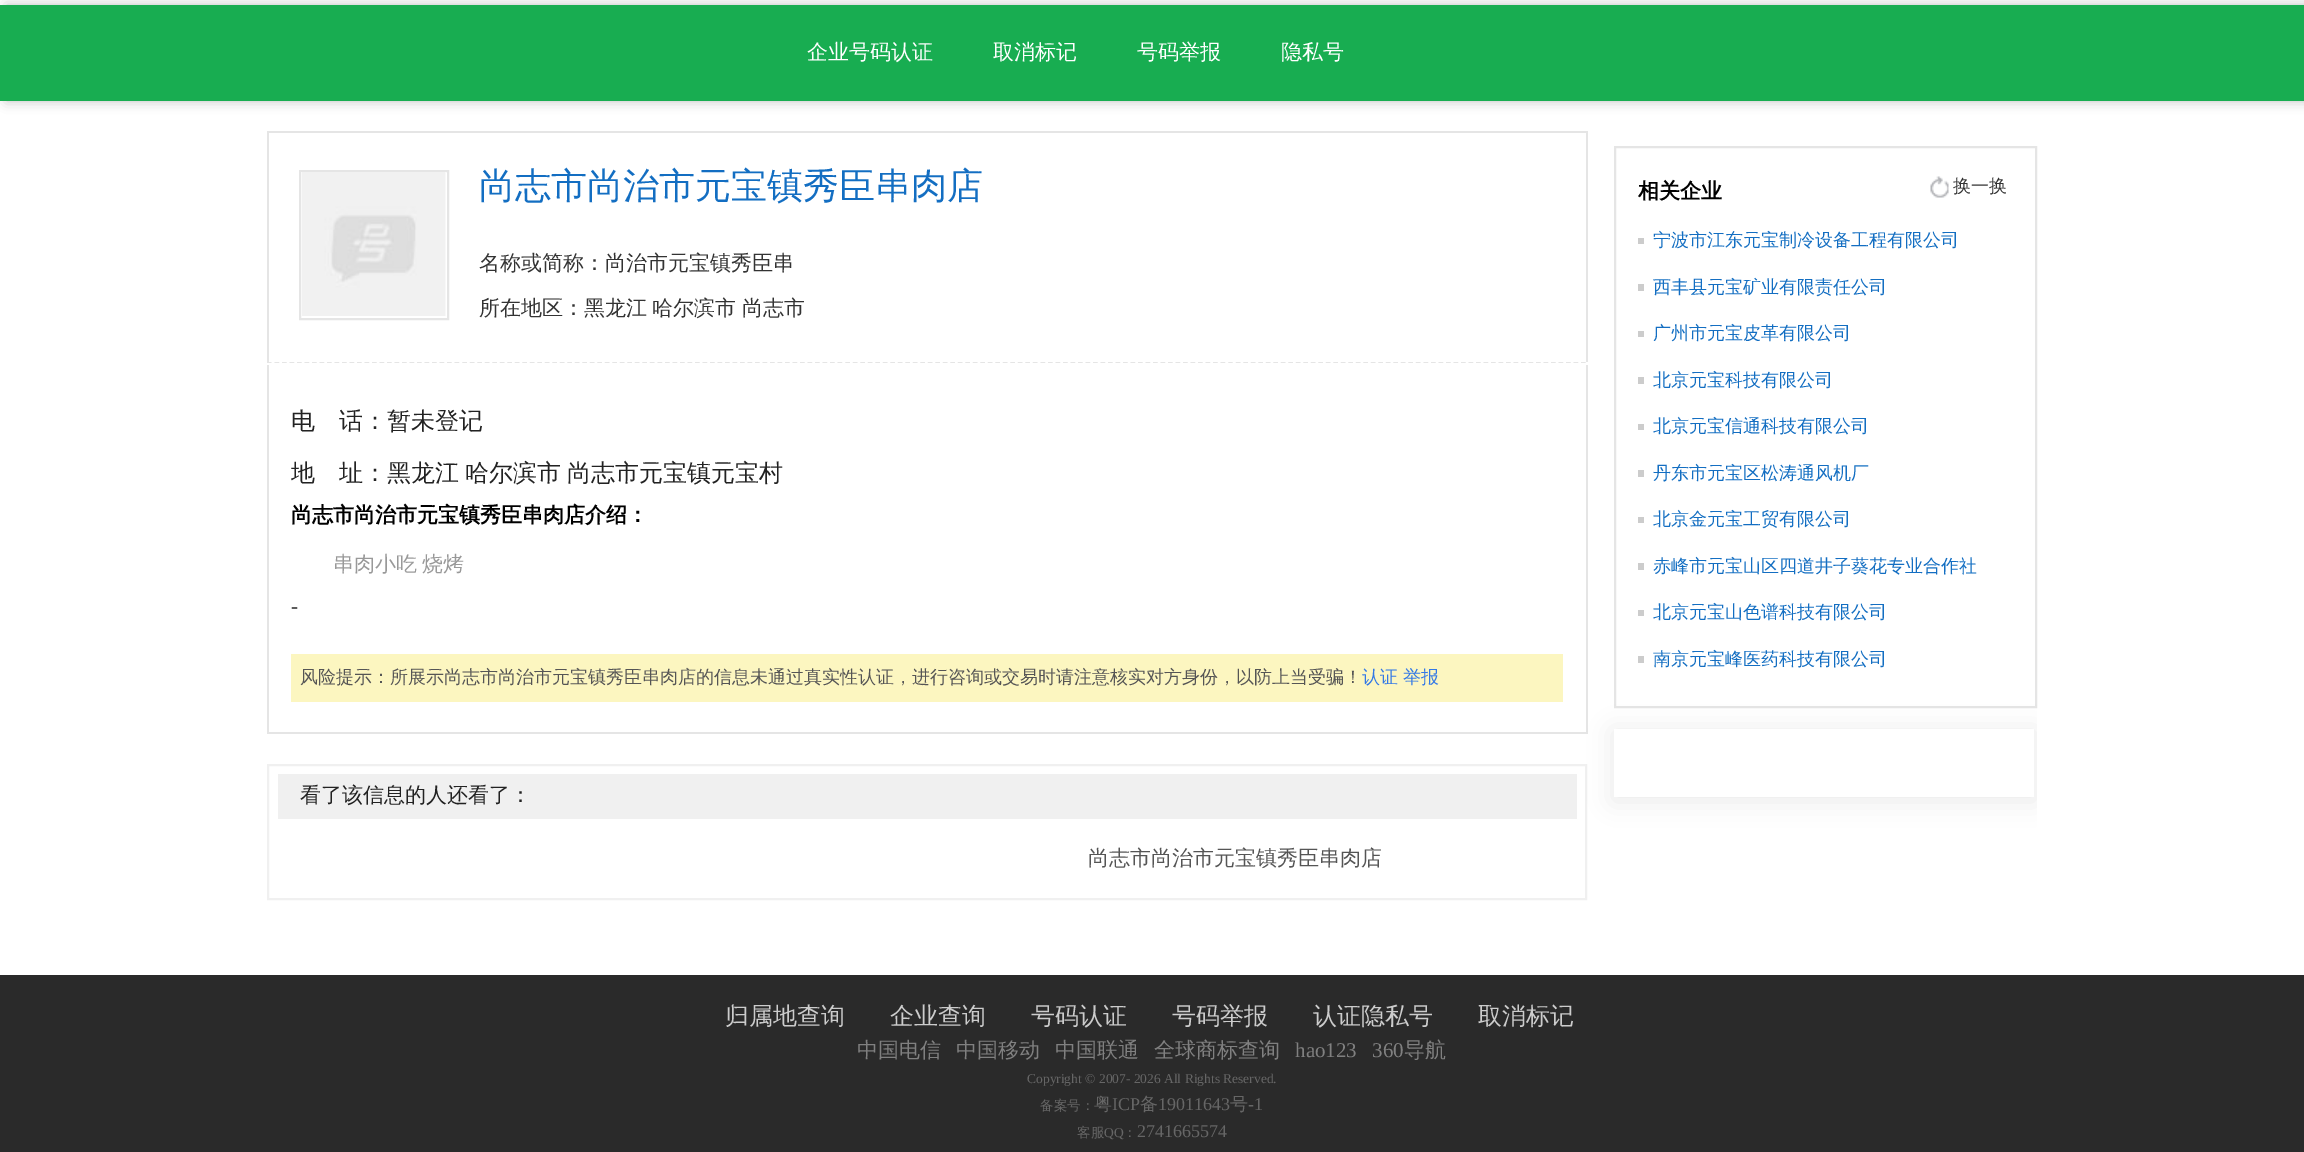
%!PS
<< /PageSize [2304 1152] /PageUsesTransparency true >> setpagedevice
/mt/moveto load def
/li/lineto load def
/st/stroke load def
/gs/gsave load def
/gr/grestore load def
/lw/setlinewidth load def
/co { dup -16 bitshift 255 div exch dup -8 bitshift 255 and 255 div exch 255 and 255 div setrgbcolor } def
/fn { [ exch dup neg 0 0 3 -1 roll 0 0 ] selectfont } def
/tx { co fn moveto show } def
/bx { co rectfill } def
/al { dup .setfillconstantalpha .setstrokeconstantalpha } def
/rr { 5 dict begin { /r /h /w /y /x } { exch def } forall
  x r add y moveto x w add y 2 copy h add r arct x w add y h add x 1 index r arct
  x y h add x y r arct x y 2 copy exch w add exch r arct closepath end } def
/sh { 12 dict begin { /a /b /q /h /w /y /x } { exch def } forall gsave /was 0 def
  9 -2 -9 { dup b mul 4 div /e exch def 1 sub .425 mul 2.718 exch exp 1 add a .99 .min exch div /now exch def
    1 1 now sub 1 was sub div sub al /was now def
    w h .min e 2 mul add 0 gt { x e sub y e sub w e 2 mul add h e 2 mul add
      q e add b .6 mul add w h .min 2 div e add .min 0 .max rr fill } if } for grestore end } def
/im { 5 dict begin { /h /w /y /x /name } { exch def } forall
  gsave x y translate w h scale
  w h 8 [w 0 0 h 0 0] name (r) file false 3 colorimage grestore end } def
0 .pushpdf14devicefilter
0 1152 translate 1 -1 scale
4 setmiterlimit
0 0 2304 1152 16#FFFFFF bx
16#BDBDBD co
6 5 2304 96 0 6 1 sh
0 5 2304 96 16#18AD51 bx
16#E5E5E5 co
1.5 lw
[4.5 3.01] 0 setdash
267 362 mt 1587 362 li st
269 361 1317 1 16#FFFFFF bx
267 131 1320 2 16#E5E5E5 bx
1586 131 2 231 16#E5E5E5 bx
267 131 2 231 16#E5E5E5 bx
2 lw
[] 0 setdash
300 171 148 148 rectstroke
(media/1.raw) 301 172 145 144 im
1586 365 2 369 16#E5E5E5 bx
267 732 1320 2 16#E5E5E5 bx
267 365 2 369 16#E5E5E5 bx
291 654 1272 48 16#FCF6C0 bx
16#F0F0F0 co
268 765 1318 134 rectstroke
278 774 1299 45 16#F0F0F0 bx
16#E5E5E5 co
1615 147 421 560 rectstroke
(media/2.raw) 1930 176 19 22 im
1638 238 6 6 16#CCCCCC bx
1638 284 6 7 16#CCCCCC bx
1638 331 6 6 16#CCCCCC bx
1638 377 6 7 16#CCCCCC bx
1638 424 6 6 16#CCCCCC bx
1638 470 6 7 16#CCCCCC bx
1638 517 6 6 16#CCCCCC bx
1638 563 6 7 16#CCCCCC bx
1638 610 6 6 16#CCCCCC bx
1638 656 6 7 16#CCCCCC bx
gs
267 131 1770 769 rectclip
16#000000 co
1613 731 423 70 0 12 .08 sh
gr
1614 729 420 68 16#FFFFFF bx
0 975 2304 177 16#2A2A2A bx
(企业号码认证) 807 59 /WenQuanYiZenHei-Medium 21 16#FFFFFF tx
(取消标记) 993 59 /WenQuanYiZenHei-Medium 21 16#FFFFFF tx
(号码举报) 1137 59 /WenQuanYiZenHei-Medium 21 16#FFFFFF tx
(隐私号) 1281 59 /WenQuanYiZenHei-Medium 21 16#FFFFFF tx
(尚志市尚治市元宝镇秀臣串肉店) 479 198 /WenQuanYiZenHei-Medium 36 16#136EC2 tx
(名称或简称：尚治市元宝镇秀臣串) 479 270 /WenQuanYiZenHei-Medium 21 16#333333 tx
479 315 mt -1 0 32 (所在地区：黑龙江 哈尔滨市 尚志市) widthshow
(电　话：) 291 429 /WenQuanYiZenHei-Medium 24 16#222222 tx
(暂未登记) 387 429 /WenQuanYiZenHei-Medium 24 16#222222 tx
(地　址：) 291 481 /WenQuanYiZenHei-Medium 24 16#222222 tx
387 481 mt -1 0 32 (黑龙江 哈尔滨市 尚志市元宝镇元宝村) widthshow
(尚志市尚治市元宝镇秀臣串肉店介绍：) 291 522 /WenQuanYiZenHei-Bold 21 16#000000 tx
/WenQuanYiZenHei-Medium 21 fn
16#999999 co
333 571 mt -1 0 32 (串肉小吃 烧烤) widthshow
(-) 291 613 /LiberationSerif-Regular 21 16#222222 tx
(风险提示：所展示尚志市尚治市元宝镇秀臣串肉店的信息未通过真实性认证，进行咨询或交易时请注意核实对方身份，以防上当受骗！) 300 683 /WenQuanYiZenHei-Medium 18 16#555555 tx
(认证) 1362 683 /WenQuanYiZenHei-Medium 18 16#3278E6 tx
(举报) 1403 683 /WenQuanYiZenHei-Medium 18 16#3278E6 tx
(看了该信息的人还看了：) 300 802 /WenQuanYiZenHei-Medium 21 16#222222 tx
(尚志市尚治市元宝镇秀臣串肉店) 1088 865 /WenQuanYiZenHei-Medium 21 16#555555 tx
(相关企业) 1638 198 /WenQuanYiZenHei-Bold 21 16#000000 tx
(换一换) 1953 192 /WenQuanYiZenHei-Medium 18 16#333333 tx
(宁波市江东元宝制冷设备工程有限公司) 1653 246 /WenQuanYiZenHei-Medium 18 16#136EC2 tx
(西丰县元宝矿业有限责任公司) 1653 293 /WenQuanYiZenHei-Medium 18 16#136EC2 tx
(广州市元宝皮革有限公司) 1653 339 /WenQuanYiZenHei-Medium 18 16#136EC2 tx
(北京元宝科技有限公司) 1653 386 /WenQuanYiZenHei-Medium 18 16#136EC2 tx
(北京元宝信通科技有限公司) 1653 432 /WenQuanYiZenHei-Medium 18 16#136EC2 tx
(丹东市元宝区松涛通风机厂) 1653 479 /WenQuanYiZenHei-Medium 18 16#136EC2 tx
(北京金元宝工贸有限公司) 1653 525 /WenQuanYiZenHei-Medium 18 16#136EC2 tx
(赤峰市元宝山区四道井子葵花专业合作社) 1653 572 /WenQuanYiZenHei-Medium 18 16#136EC2 tx
(北京元宝山色谱科技有限公司) 1653 618 /WenQuanYiZenHei-Medium 18 16#136EC2 tx
(南京元宝峰医药科技有限公司) 1653 665 /WenQuanYiZenHei-Medium 18 16#136EC2 tx
(归属地查询) 725 1024 /WenQuanYiZenHei-Medium 24 16#CCCCCC tx
(企业查询) 890 1024 /WenQuanYiZenHei-Medium 24 16#CCCCCC tx
(号码认证) 1031 1024 /WenQuanYiZenHei-Medium 24 16#CCCCCC tx
(号码举报) 1172 1024 /WenQuanYiZenHei-Medium 24 16#CCCCCC tx
(认证隐私号) 1313 1024 /WenQuanYiZenHei-Medium 24 16#CCCCCC tx
(取消标记) 1478 1024 /WenQuanYiZenHei-Medium 24 16#CCCCCC tx
(中国电信) 857 1057 /WenQuanYiZenHei-Medium 21 16#808080 tx
(中国移动) 956 1057 /WenQuanYiZenHei-Medium 21 16#808080 tx
(中国联通) 1055 1057 /WenQuanYiZenHei-Medium 21 16#808080 tx
(全球商标查询) 1154 1057 /WenQuanYiZenHei-Medium 21 16#808080 tx
(hao123) 1295 1057 /LiberationSerif-Regular 21 16#808080 tx
(360) 1372 1057 /LiberationSerif-Regular 21 16#808080 tx
(导航) 1404 1057 /WenQuanYiZenHei-Medium 21 16#808080 tx
(Copyright © 2007- 2026 All Rights Reserved.) 1027 1083 /LiberationSerif-Regular 13.5 16#666666 tx
(备案号：) 1040 1110 /WenQuanYiZenHei-Medium 13.5 16#666666 tx
(粤) 1094 1110 /WenQuanYiZenHei-Medium 18 16#666666 tx
(ICP) 1112 1110 /LiberationSerif-Regular 18 16#666666 tx
(备) 1140 1110 /WenQuanYiZenHei-Medium 18 16#666666 tx
(19011643) 1158 1110 /LiberationSerif-Regular 18 16#666666 tx
(号) 1230 1110 /WenQuanYiZenHei-Medium 18 16#666666 tx
(-1) 1248 1110 /LiberationSerif-Regular 18 16#666666 tx
(客服) 1077 1137 /WenQuanYiZenHei-Medium 13.5 16#666666 tx
(QQ) 1104 1137 /LiberationSerif-Regular 13.5 16#666666 tx
(：) 1123 1137 /WenQuanYiZenHei-Medium 13.5 16#666666 tx
(2741665574) 1137 1137 /LiberationSerif-Regular 18 16#666666 tx
.poppdf14devicefilter showpage
